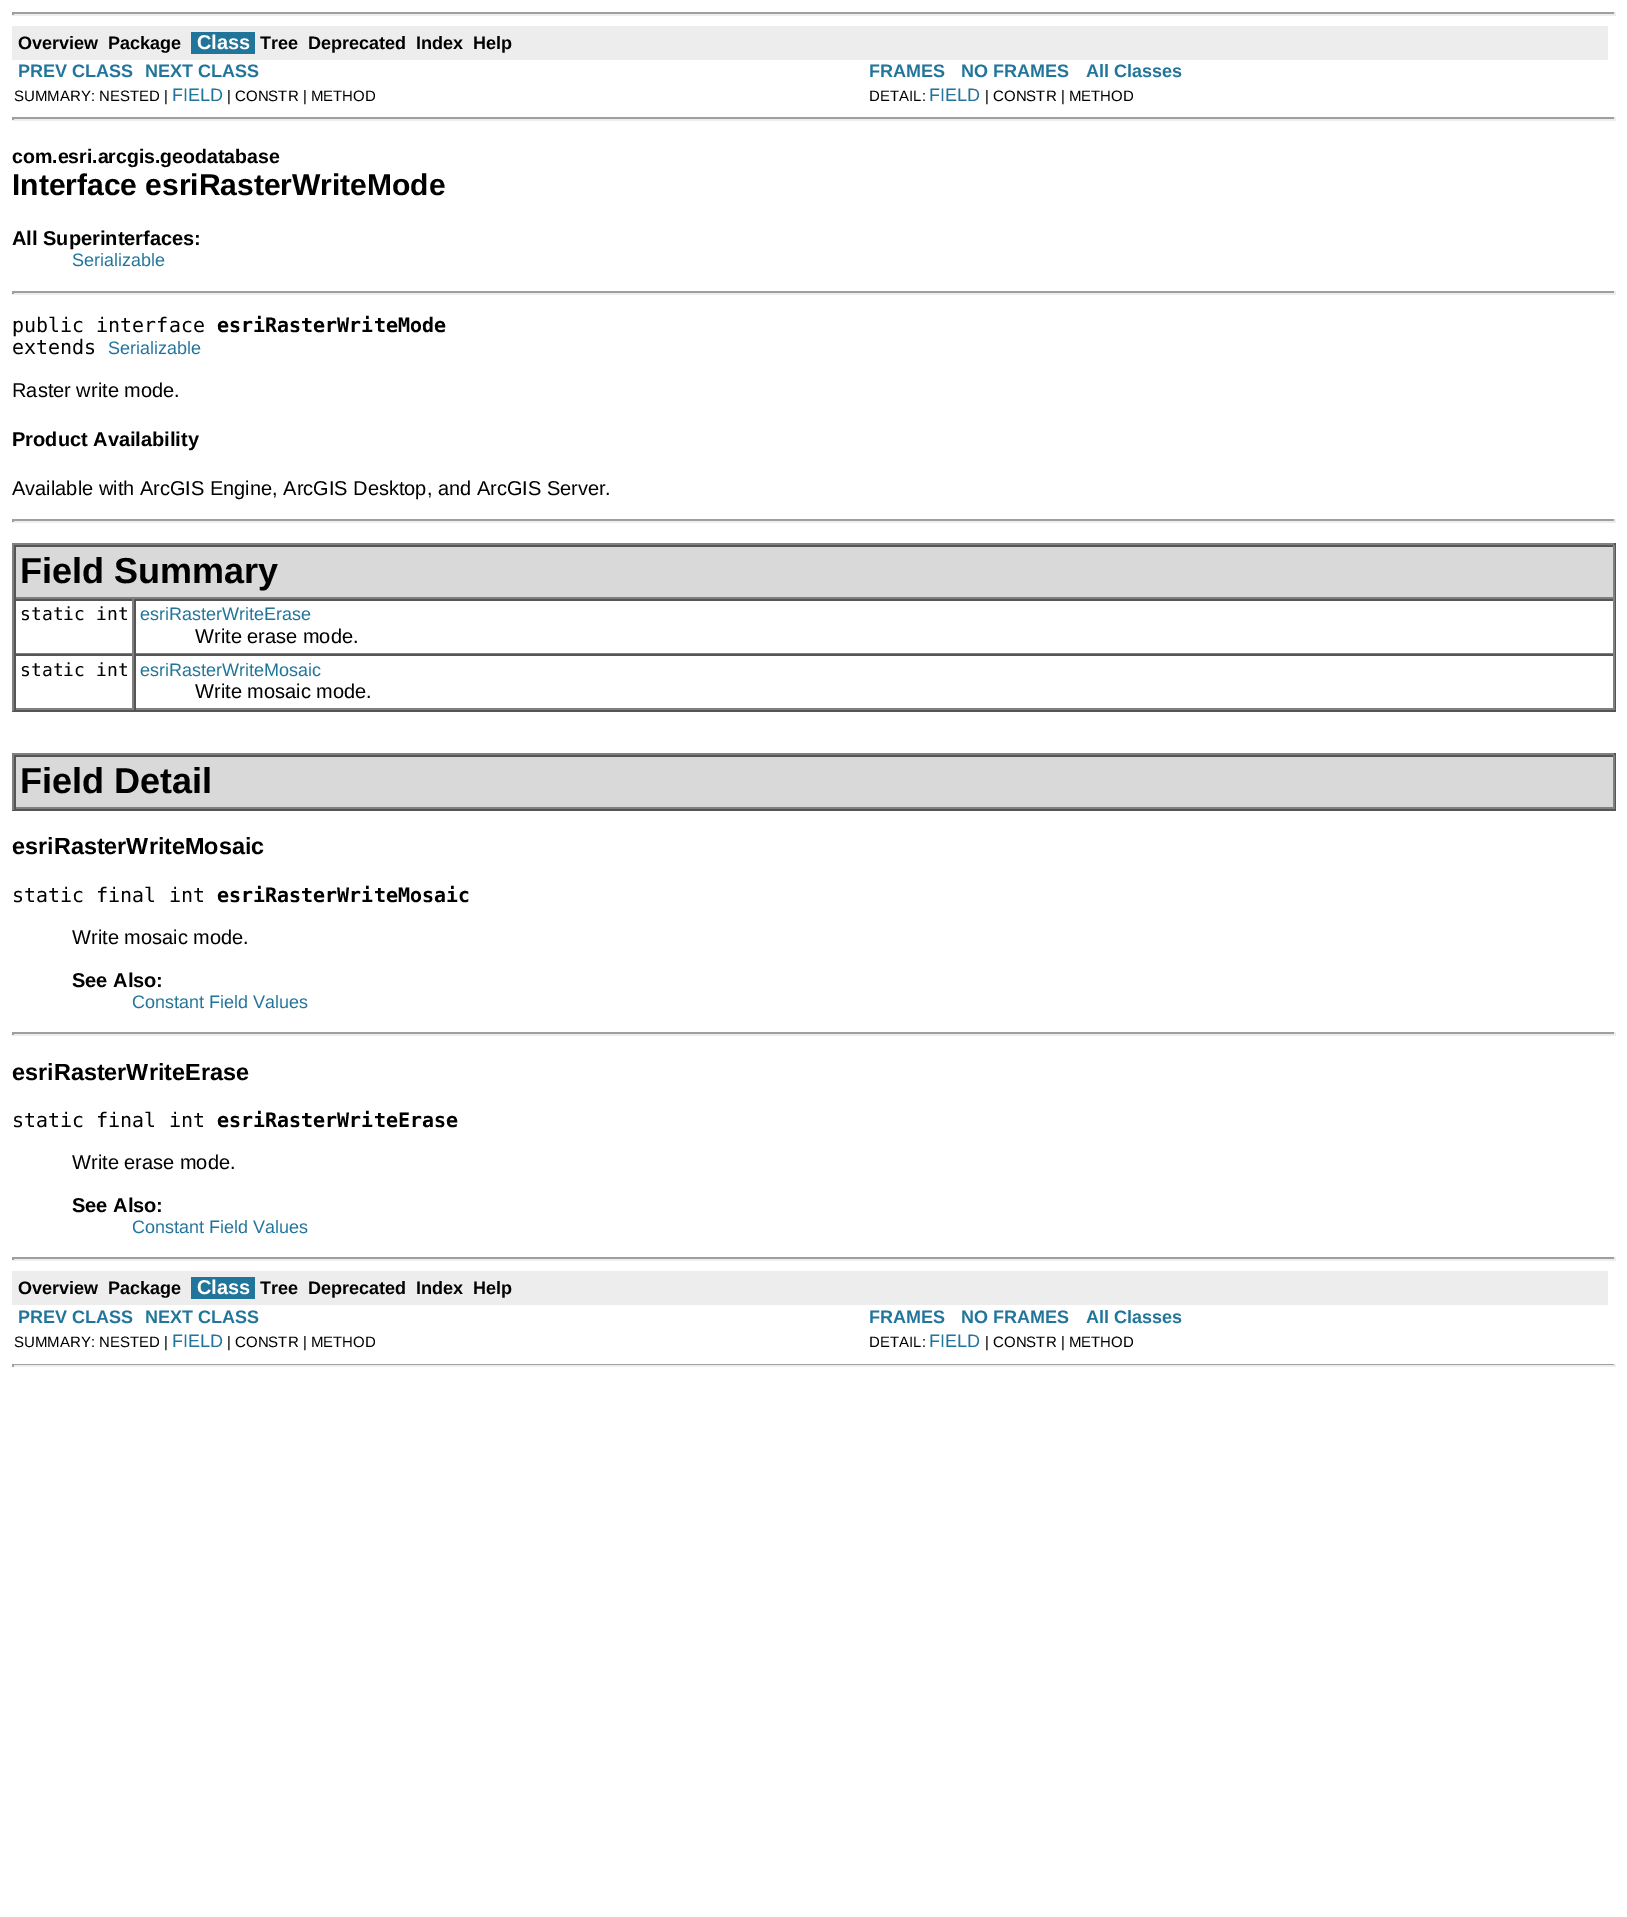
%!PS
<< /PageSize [1627 1917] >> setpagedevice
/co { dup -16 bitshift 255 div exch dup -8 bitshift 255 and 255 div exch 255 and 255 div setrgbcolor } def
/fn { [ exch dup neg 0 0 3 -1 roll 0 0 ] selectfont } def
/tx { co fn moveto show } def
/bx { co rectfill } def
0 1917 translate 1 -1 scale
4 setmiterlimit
0 0 1627 1917 16#FFFFFF bx
12 12 1604 2 16#9F9F9F bx
1614 12 2 3 16#EEEEEE bx
12 14 1604 2 16#EEEEEE bx
12 12 2 3 16#9F9F9F bx
12 26 1596 34 16#EDEDED bx
191 32 64 22 16#21759B bx
12 117 1604 2 16#9F9F9F bx
1614 117 2 3 16#EEEEEE bx
12 119 1604 2 16#EEEEEE bx
12 117 2 3 16#9F9F9F bx
12 291 1604 2 16#9F9F9F bx
1614 291 2 3 16#EEEEEE bx
12 293 1604 2 16#EEEEEE bx
12 291 2 3 16#9F9F9F bx
12 519 1604 2 16#9F9F9F bx
1614 519 2 3 16#EEEEEE bx
12 521 1604 2 16#EEEEEE bx
12 519 2 3 16#9F9F9F bx
12 543 1604 2 16#808080 bx
1614 543 2 168 16#555555 bx
12 710 1604 2 16#555555 bx
12 543 2 168 16#808080 bx
16 547 1597 50 16#D9D9D9 bx
14 545 1600 2 16#555555 bx
1613 545 2 54 16#808080 bx
14 597 1600 2 16#808080 bx
14 545 2 54 16#555555 bx
14 599 1600 2 16#555555 bx
132 599 2 55 16#808080 bx
14 653 120 1 16#808080 bx
14 599 2 55 16#555555 bx
1613 599 2 55 16#808080 bx
134 653 1480 1 16#808080 bx
134 599 2 55 16#555555 bx
14 654 1600 2 16#555555 bx
132 654 2 56 16#808080 bx
14 708 120 2 16#808080 bx
14 654 2 56 16#555555 bx
1613 654 2 56 16#808080 bx
134 708 1480 2 16#808080 bx
134 654 2 56 16#555555 bx
12 753 1604 2 16#808080 bx
1614 753 2 57 16#555555 bx
12 809 1604 2 16#555555 bx
12 753 2 57 16#808080 bx
16 757 1597 50 16#D9D9D9 bx
14 755 1600 2 16#555555 bx
1613 755 2 54 16#808080 bx
14 807 1600 2 16#808080 bx
14 755 2 54 16#555555 bx
12 1032 1604 2 16#9F9F9F bx
1614 1032 2 3 16#EEEEEE bx
12 1034 1604 2 16#EEEEEE bx
12 1032 2 3 16#9F9F9F bx
12 1257 1604 2 16#9F9F9F bx
1614 1257 2 3 16#EEEEEE bx
12 1259 1604 2 16#EEEEEE bx
12 1257 2 3 16#9F9F9F bx
12 1271 1596 34 16#EDEDED bx
191 1277 64 22 16#21759B bx
12 1364 1604 1 16#9F9F9F bx
1614 1364 2 3 16#EEEEEE bx
12 1365 1604 2 16#EEEEEE bx
12 1364 2 3 16#9F9F9F bx
(Overview) 18 49 /LiberationSans-Bold 18 16#000000 tx
(Package) 108 49 /LiberationSans-Bold 18 16#000000 tx
(Class) 197 49 /LiberationSans-Bold 20 16#FFFFFF tx
(Tree) 260 49 /LiberationSans-Bold 18 16#000000 tx
(Deprecated) 308 49 /LiberationSans-Bold 18 16#000000 tx
(Index) 416 49 /LiberationSans-Bold 18 16#000000 tx
(Help) 473 49 /LiberationSans-Bold 18 16#000000 tx
(PREV CLASS) 18 77 /LiberationSans-Bold 18 16#21759B tx
(NEXT CLASS) 145 77 /LiberationSans-Bold 18 16#21759B tx
(FRAMES) 869 77 /LiberationSans-Bold 18 16#21759B tx
(NO FRAMES) 961 77 /LiberationSans-Bold 18 16#21759B tx
(All Classes) 1086 77 /LiberationSans-Bold 18 16#21759B tx
(SUMMARY: NESTED |) 14 101 /LiberationSans-Regular 15 16#000000 tx
(FIELD) 172 101 /LiberationSans-Regular 18 16#21759B tx
(| CONSTR | METHOD) 227 101 /LiberationSans-Regular 15 16#000000 tx
(DETAIL:) 869 101 /LiberationSans-Regular 15 16#000000 tx
(FIELD) 929 101 /LiberationSans-Regular 18 16#21759B tx
(| CONSTR | METHOD) 985 101 /LiberationSans-Regular 15 16#000000 tx
(com.esri.arcgis.geodatabase) 12 163 /LiberationSans-Bold 19.5 16#000000 tx
(Interface esriRasterWriteMode) 12 195 /LiberationSans-Bold 30 16#000000 tx
(All Superinterfaces:) 12 245 /LiberationSans-Bold 20 16#000000 tx
(Serializable) 72 266 /LiberationSans-Regular 18 16#21759B tx
(public interface) 12 332 /DejaVuSansMono-Regular 20 16#000000 tx
(esriRasterWriteMode) 217 332 /DejaVuSansMono-Bold 20 16#000000 tx
(extends) 12 354 /DejaVuSansMono-Regular 20 16#000000 tx
(Serializable) 108 354 /LiberationSans-Regular 18 16#21759B tx
(Raster write mode.) 12 397 /LiberationSans-Regular 20 16#000000 tx
(Product Availability) 12 446 /LiberationSans-Bold 20 16#000000 tx
(Available with ArcGIS Engine, ArcGIS Desktop, and ArcGIS Server.) 12 495 /LiberationSans-Regular 20 16#000000 tx
(Field Summary) 20 583 /LiberationSans-Bold 36 16#000000 tx
(static int) 20 620 /DejaVuSansMono-Regular 18 16#000000 tx
(esriRasterWriteErase) 140 620 /LiberationSans-Regular 18 16#21759B tx
(Write erase mode.) 195 643 /LiberationSans-Regular 20 16#000000 tx
(static int) 20 676 /DejaVuSansMono-Regular 18 16#000000 tx
(esriRasterWriteMosaic) 140 676 /LiberationSans-Regular 18 16#21759B tx
(Write mosaic mode.) 195 698 /LiberationSans-Regular 20 16#000000 tx
(Field Detail) 20 793 /LiberationSans-Bold 36 16#000000 tx
(esriRasterWriteMosaic) 12 854 /LiberationSans-Bold 23.4 16#000000 tx
(static final int) 12 902 /DejaVuSansMono-Regular 20 16#000000 tx
(esriRasterWriteMosaic) 217 902 /DejaVuSansMono-Bold 20 16#000000 tx
(Write mosaic mode.) 72 944 /LiberationSans-Regular 20 16#000000 tx
(See Also:) 72 987 /LiberationSans-Bold 20 16#000000 tx
(Constant Field Values) 132 1008 /LiberationSans-Regular 18 16#21759B tx
(esriRasterWriteErase) 12 1080 /LiberationSans-Bold 23.4 16#000000 tx
(static final int) 12 1127 /DejaVuSansMono-Regular 20 16#000000 tx
(esriRasterWriteErase) 217 1127 /DejaVuSansMono-Bold 20 16#000000 tx
(Write erase mode.) 72 1169 /LiberationSans-Regular 20 16#000000 tx
(See Also:) 72 1212 /LiberationSans-Bold 20 16#000000 tx
(Constant Field Values) 132 1233 /LiberationSans-Regular 18 16#21759B tx
(Overview) 18 1294 /LiberationSans-Bold 18 16#000000 tx
(Package) 108 1294 /LiberationSans-Bold 18 16#000000 tx
(Class) 197 1294 /LiberationSans-Bold 20 16#FFFFFF tx
(Tree) 260 1294 /LiberationSans-Bold 18 16#000000 tx
(Deprecated) 308 1294 /LiberationSans-Bold 18 16#000000 tx
(Index) 416 1294 /LiberationSans-Bold 18 16#000000 tx
(Help) 473 1294 /LiberationSans-Bold 18 16#000000 tx
(PREV CLASS) 18 1323 /LiberationSans-Bold 18 16#21759B tx
(NEXT CLASS) 145 1323 /LiberationSans-Bold 18 16#21759B tx
(FRAMES) 869 1323 /LiberationSans-Bold 18 16#21759B tx
(NO FRAMES) 961 1323 /LiberationSans-Bold 18 16#21759B tx
(All Classes) 1086 1323 /LiberationSans-Bold 18 16#21759B tx
(SUMMARY: NESTED |) 14 1347 /LiberationSans-Regular 15 16#000000 tx
(FIELD) 172 1347 /LiberationSans-Regular 18 16#21759B tx
(| CONSTR | METHOD) 227 1347 /LiberationSans-Regular 15 16#000000 tx
(DETAIL:) 869 1347 /LiberationSans-Regular 15 16#000000 tx
(FIELD) 929 1347 /LiberationSans-Regular 18 16#21759B tx
(| CONSTR | METHOD) 985 1347 /LiberationSans-Regular 15 16#000000 tx
showpage
